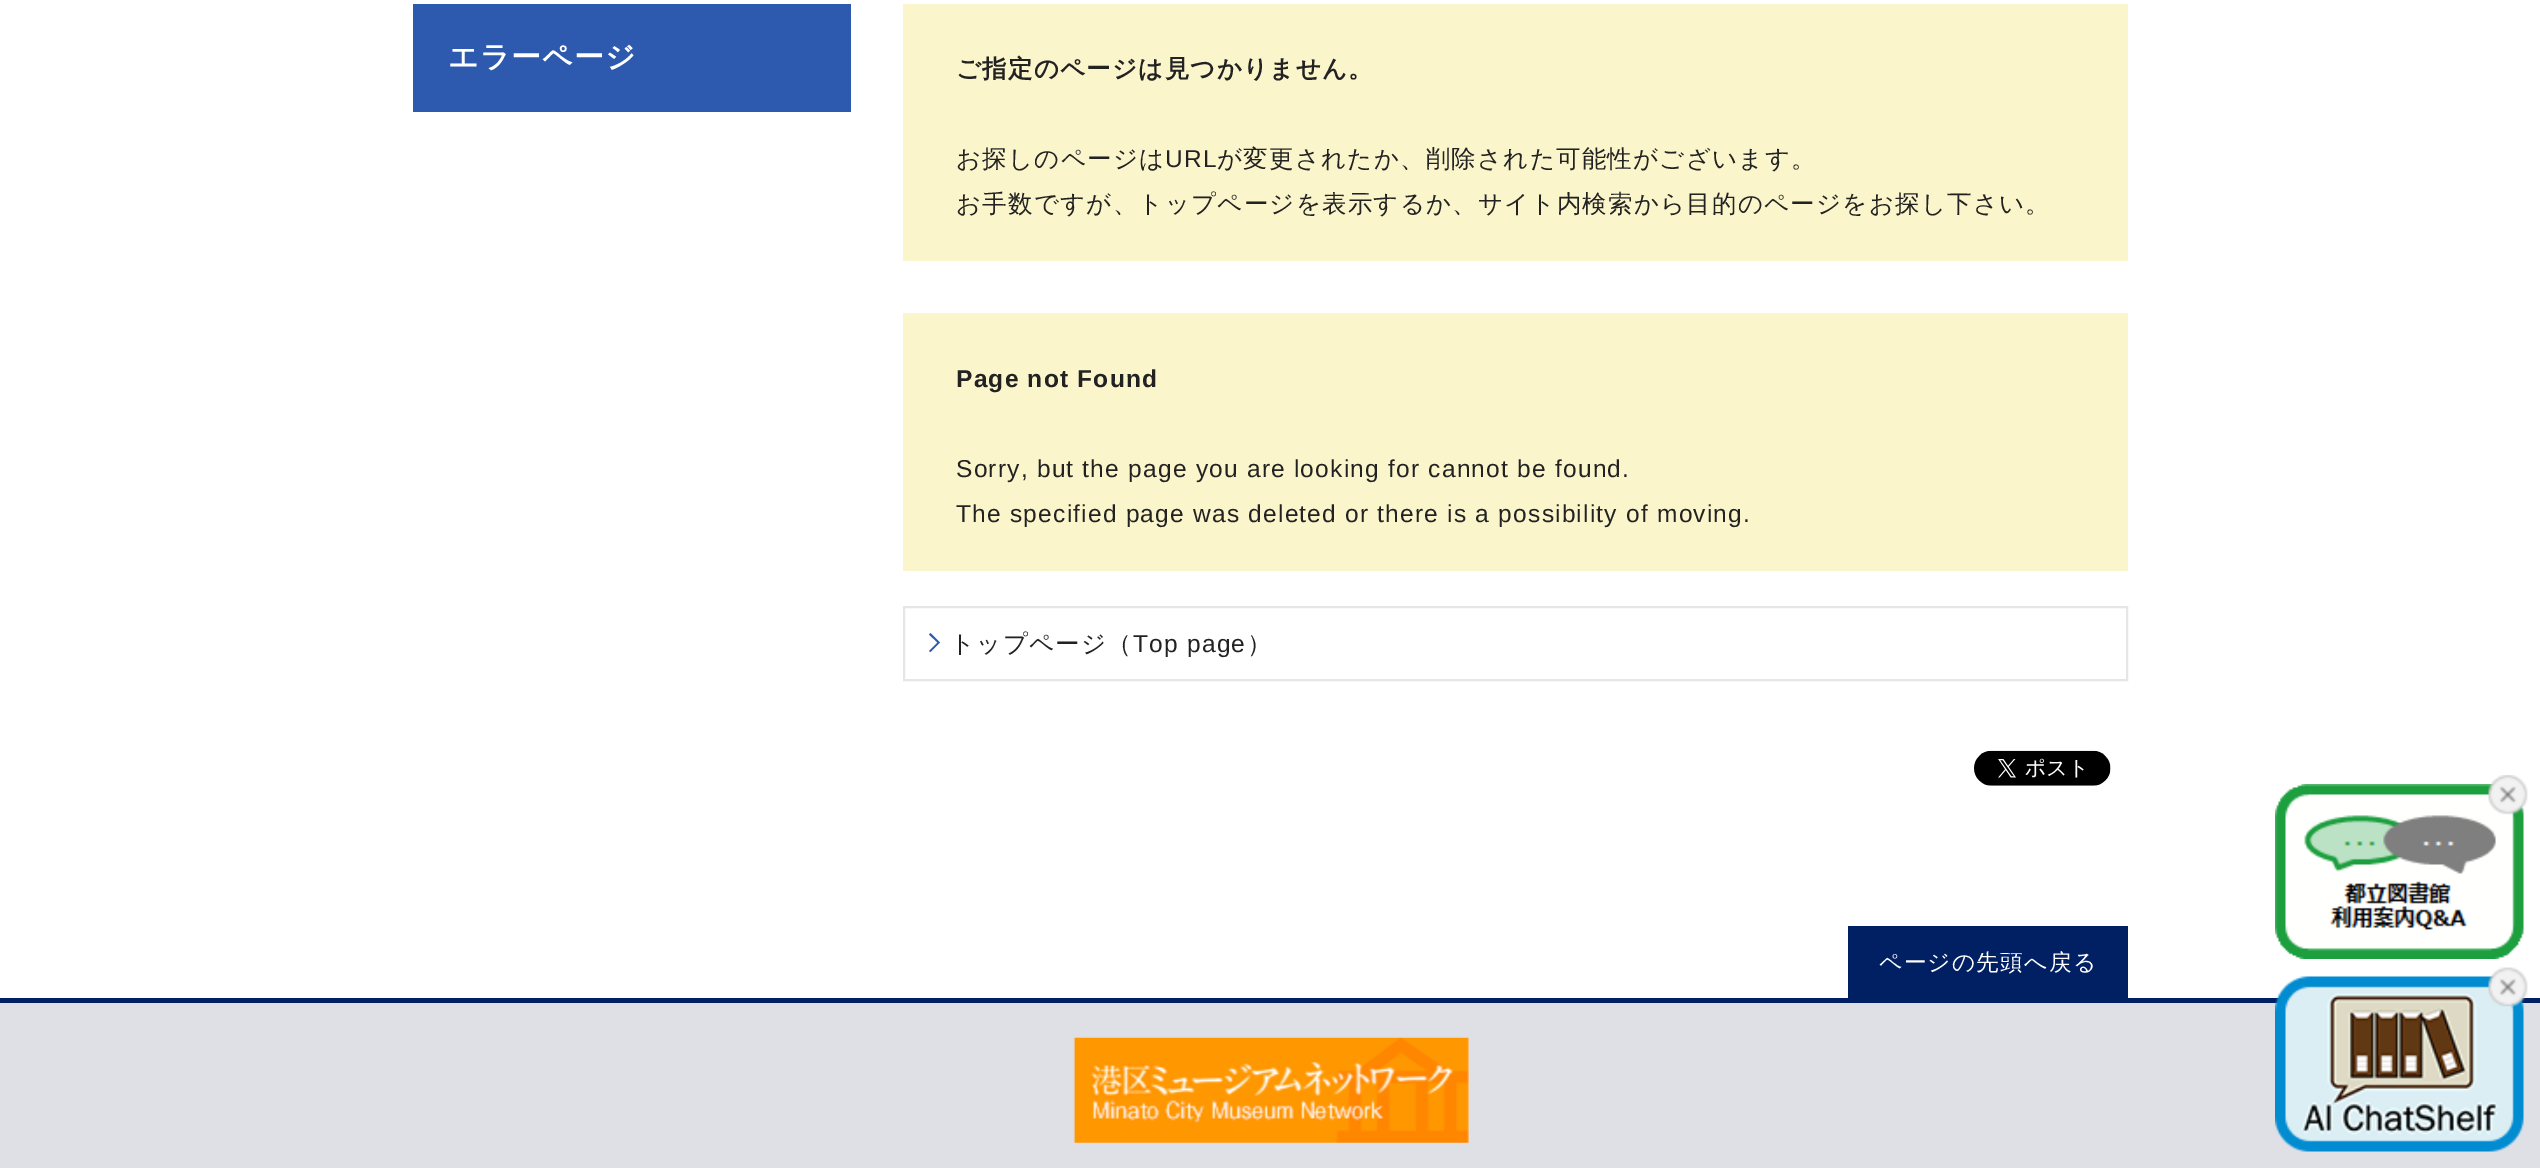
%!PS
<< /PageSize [2540 1168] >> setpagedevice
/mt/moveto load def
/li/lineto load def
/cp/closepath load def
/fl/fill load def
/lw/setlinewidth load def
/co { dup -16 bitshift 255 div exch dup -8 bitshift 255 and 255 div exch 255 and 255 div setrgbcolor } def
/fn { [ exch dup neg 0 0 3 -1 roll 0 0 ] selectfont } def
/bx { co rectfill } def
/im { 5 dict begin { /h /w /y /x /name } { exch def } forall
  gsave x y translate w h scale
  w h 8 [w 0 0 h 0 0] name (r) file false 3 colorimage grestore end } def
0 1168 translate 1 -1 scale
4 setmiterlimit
0 0 2540 1168 16#FFFFFF bx
413 4 438 108 16#2D5AAE bx
903 4 1225 257 16#FBF5CB bx
903 313 1225 258 16#FBF5CB bx
16#E6E6E6 co
2 lw
904 607 1223 73 rectstroke
16#2D5AAE co
930.5 652 mt 929 651 li 937.5 642.5 li 929 634.5 li 930.5 633 li 940 642.5 li cp fl
(media/1.raw) 1974 750 137 36 im
1848 926 280 72 16#002063 bx
0 1003 2540 165 16#DFE0E6 bx
0 998 2540 5 16#002063 bx
(media/2.raw) 1073 1037 396 106 im
(media/4.raw) 2275 784 249 175 im
(media/3.raw) 2488 775 40 40 im
(media/6.raw) 2275 976 249 176 im
(media/5.raw) 2488 967 40 40 im
/WenQuanYiZenHei-Bold 29.75 fn
16#FFFFFF co
448 67 mt 1.22 0 (エラーページ) ashow
/WenQuanYiZenHei-Bold 24.5 fn
16#222222 co
956 77 mt 1.22 0 (ご指定のページは見つかりません。) ashow
/WenQuanYiZenHei-Medium 24.5 fn
956 167 mt 1.22 0 (お探しのページは) ashow
/LiberationSans-Regular 24.5 fn
1165 167 mt 1.22 0 (URL) ashow
/WenQuanYiZenHei-Medium 24.5 fn
1217 167 mt 1.22 0 (が変更されたか、削除された可能性がございます。) ashow
956 212 mt 1.22 0 (お手数ですが、トップページを表示するか、サイト内検索から目的のページをお探し下さい。) ashow
/LiberationSans-Bold 24.5 fn
956 387 mt 1.22 0 (Page not Found) ashow
/LiberationSans-Regular 24.5 fn
956 477 mt 1.22 0 (Sorry, but the page you are looking for cannot be found.) ashow
956 522 mt 1.22 0 (The specified page was deleted or there is a possibility of moving.) ashow
/WenQuanYiZenHei-Medium 24.5 fn
950 652 mt 1.22 0 (トップページ（) ashow
/LiberationSans-Regular 24.5 fn
1133 652 mt 1.22 0 (Top page) ashow
/WenQuanYiZenHei-Medium 24.5 fn
1247 652 mt 1.22 0 (）) ashow
/WenQuanYiZenHei-Medium 22.75 fn
16#FFFFFF co
1879 970 mt 1.22 0 (ページの先頭へ戻る) ashow
showpage
